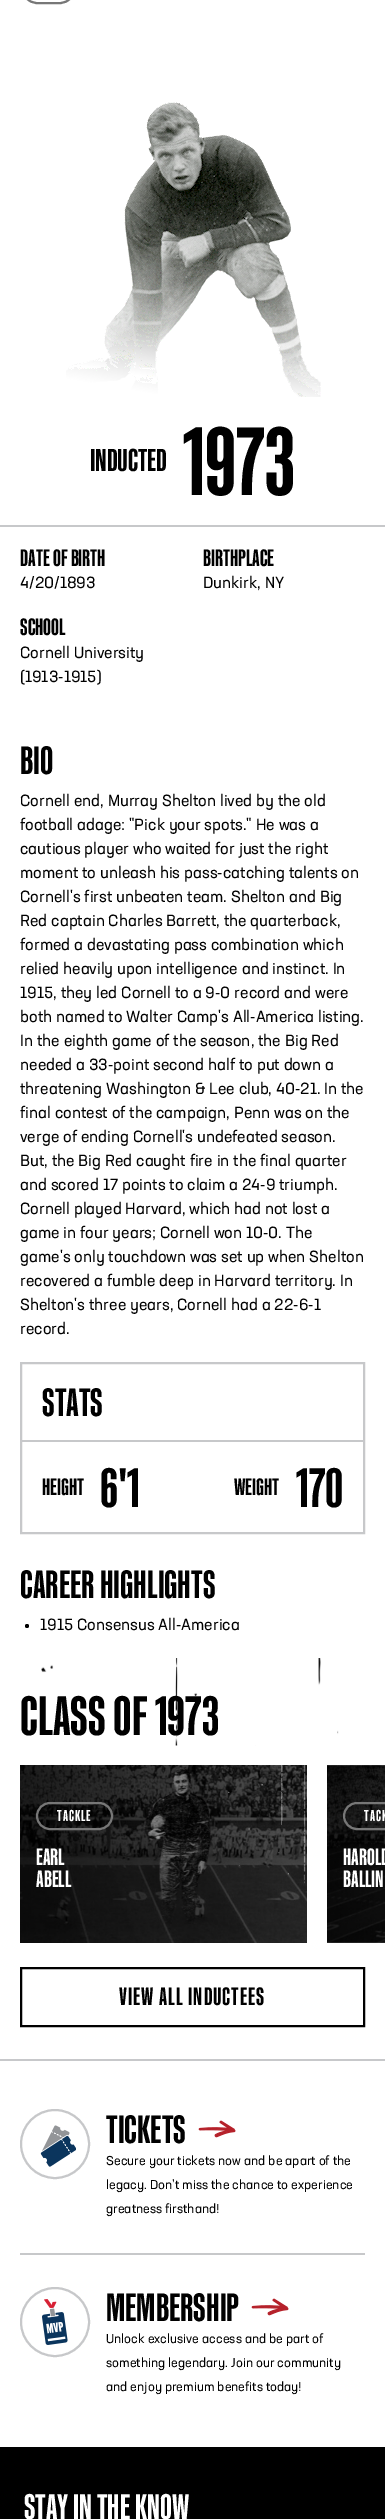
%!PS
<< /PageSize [385 2519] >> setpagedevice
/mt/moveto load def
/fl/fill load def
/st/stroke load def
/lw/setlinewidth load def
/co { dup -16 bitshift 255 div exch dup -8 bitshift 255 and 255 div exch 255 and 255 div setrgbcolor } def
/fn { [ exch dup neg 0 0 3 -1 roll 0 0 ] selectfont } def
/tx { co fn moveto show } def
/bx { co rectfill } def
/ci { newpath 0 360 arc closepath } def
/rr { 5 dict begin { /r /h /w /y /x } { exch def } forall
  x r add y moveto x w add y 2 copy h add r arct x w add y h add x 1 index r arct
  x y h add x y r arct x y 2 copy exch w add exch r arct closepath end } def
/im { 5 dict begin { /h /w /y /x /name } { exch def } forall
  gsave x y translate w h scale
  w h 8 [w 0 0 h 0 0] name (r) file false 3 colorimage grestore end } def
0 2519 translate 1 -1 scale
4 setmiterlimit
0 0 385 2519 16#FFFFFF bx
16#777777 co
2 lw
21 -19 55 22 16.5 rr st
(media/1.raw) 66 102 255 295 im
0 525 385 2 16#C7C8CA bx
21 1363 343 170 rectstroke
22 1440 341 2 16#C7C8CA bx
16#000000 co
27 1626 2 ci fl
(media/2.raw) 41 1658 298 88 im
(media/3.raw) 20 1765 287 178 im
16#777777 co
37 1803 75 26 13 rr st
(media/4.raw) 144 1767 67 157 im
(media/5.raw) 327 1765 58 178 im
344 1803 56 26 13 rr st
16#000000 co
21 1968 343 58 rectstroke
0 2059 385 2 16#C7C8CA bx
20 2253 345 2 16#C7C8CA bx
55 2144 34 ci st
(media/6.raw) 40 2125 36 42 im
(media/7.raw) 198 2120 38 18 im
55 2322 34 ci st
(media/8.raw) 42 2299 26 46 im
(media/7.raw) 251 2298 38 18 im
0 2447 385 72 16#000000 bx
(INDUCTED) 90 471 /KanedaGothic-Bold 32 16#000000 tx
(1973) 183 495 /KanedaGothic-Bold 98 16#000000 tx
(DATE OF BIRTH) 20 566 /KanedaGothic-Bold 24 16#000000 tx
(4/20/1893) 20 588 /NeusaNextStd-Regular 16 16#000000 tx
(BIRTHPLACE) 203 566 /KanedaGothic-Bold 24 16#000000 tx
(Dunkirk, NY) 203 588 /NeusaNextStd-Regular 16 16#000000 tx
(SCHOOL) 20 635 /KanedaGothic-Bold 24 16#000000 tx
(Cornell University) 20 658 /NeusaNextStd-Regular 16 16#000000 tx
(\(1913-1915\)) 20 682 /NeusaNextStd-Regular 16 16#000000 tx
(BIO) 20 774 /KanedaGothic-Bold 40 16#000000 tx
(Cornell end, Murray Shelton lived by the old) 20 806 /NeusaNextStd-Regular 16 16#000000 tx
(football adage: "Pick your spots." He was a) 20 830 /NeusaNextStd-Regular 16 16#000000 tx
(cautious player who waited for just the right) 20 854 /NeusaNextStd-Regular 16 16#000000 tx
(moment to unleash his pass-catching talents on) 20 878 /NeusaNextStd-Regular 16 16#000000 tx
(Cornell's first unbeaten team. Shelton and Big) 20 902 /NeusaNextStd-Regular 16 16#000000 tx
(Red captain Charles Barrett, the quarterback,) 20 926 /NeusaNextStd-Regular 16 16#000000 tx
(formed a devastating pass combination which) 20 950 /NeusaNextStd-Regular 16 16#000000 tx
(relied heavily upon intelligence and instinct. In) 20 974 /NeusaNextStd-Regular 16 16#000000 tx
(1915, they led Cornell to a 9-0 record and were) 20 998 /NeusaNextStd-Regular 16 16#000000 tx
(both named to Walter Camp's All-America listing.) 20 1022 /NeusaNextStd-Regular 16 16#000000 tx
(In the eighth game of the season, the Big Red) 20 1046 /NeusaNextStd-Regular 16 16#000000 tx
(needed a 33-point second half to put down a) 20 1070 /NeusaNextStd-Regular 16 16#000000 tx
(threatening Washington & Lee club, 40-21. In the) 20 1094 /NeusaNextStd-Regular 16 16#000000 tx
(final contest of the campaign, Penn was on the) 20 1118 /NeusaNextStd-Regular 16 16#000000 tx
(verge of ending Cornell's undefeated season.) 20 1142 /NeusaNextStd-Regular 16 16#000000 tx
(But, the Big Red caught fire in the final quarter) 20 1166 /NeusaNextStd-Regular 16 16#000000 tx
(and scored 17 points to claim a 24-9 triumph.) 20 1190 /NeusaNextStd-Regular 16 16#000000 tx
(Cornell played Harvard, which had not lost a) 20 1214 /NeusaNextStd-Regular 16 16#000000 tx
(game in four years; Cornell won 10-0. The) 20 1238 /NeusaNextStd-Regular 16 16#000000 tx
(game's only touchdown was set up when Shelton) 20 1262 /NeusaNextStd-Regular 16 16#000000 tx
(recovered a fumble deep in Harvard territory. In) 20 1286 /NeusaNextStd-Regular 16 16#000000 tx
(Shelton's three years, Cornell had a 22-6-1) 20 1310 /NeusaNextStd-Regular 16 16#000000 tx
(record.) 20 1334 /NeusaNextStd-Regular 16 16#000000 tx
(STATS) 42 1416 /KanedaGothic-Bold 40 16#000000 tx
(HEIGHT) 42 1495 /KanedaGothic-Bold 24 16#000000 tx
(6'1) 100 1507 /KanedaGothic-Bold 56 16#000000 tx
(WEIGHT) 234 1495 /KanedaGothic-Bold 24 16#000000 tx
(170) 296 1507 /KanedaGothic-Bold 56 16#000000 tx
(CAREER HIGHLIGHTS) 20 1598 /KanedaGothic-Bold 40 16#000000 tx
(1915 Consensus All-America) 40 1630 /NeusaNextStd-Regular 16 16#000000 tx
(CLASS OF 1973) 20 1735 /KanedaGothic-Bold 56 16#000000 tx
/KanedaGothic-Bold 16 fn
16#FFFFFF co
57 1821 mt 1 0 (TACKLE) ashow
(EARL) 36 1865 /KanedaGothic-Bold 24 16#FFFFFF tx
(ABELL) 36 1887 /KanedaGothic-Bold 24 16#FFFFFF tx
/KanedaGothic-Bold 16 fn
364 1821 mt 1 0 (TACK) ashow
(HAROLD) 343 1865 /KanedaGothic-Bold 24 16#FFFFFF tx
(BALLIN) 343 1887 /KanedaGothic-Bold 24 16#FFFFFF tx
/KanedaGothic-Bold 25.5 fn
16#000000 co
119 2005 mt 1 0 (VIEW ALL INDUCTEES) ashow
(TICKETS) 106 2143 /KanedaGothic-Bold 40 16#000000 tx
(Secure your tickets now and be apart of the) 106 2165 /NeusaNextStd-Regular 12.75 16#000000 tx
(legacy. Don’t miss the chance to experience) 106 2189 /NeusaNextStd-Regular 12.75 16#000000 tx
(greatness firsthand!) 106 2213 /NeusaNextStd-Regular 12.75 16#000000 tx
(MEMBERSHIP) 106 2321 /KanedaGothic-Bold 40 16#000000 tx
(Unlock exclusive access and be part of) 106 2343 /NeusaNextStd-Regular 12.75 16#000000 tx
(something legendary. Join our community) 106 2367 /NeusaNextStd-Regular 12.75 16#000000 tx
(and enjoy premium benefits today!) 106 2391 /NeusaNextStd-Regular 12.75 16#000000 tx
(STAY IN THE KNOW) 24 2519 /KanedaGothic-Bold 36 16#FFFFFF tx
showpage
